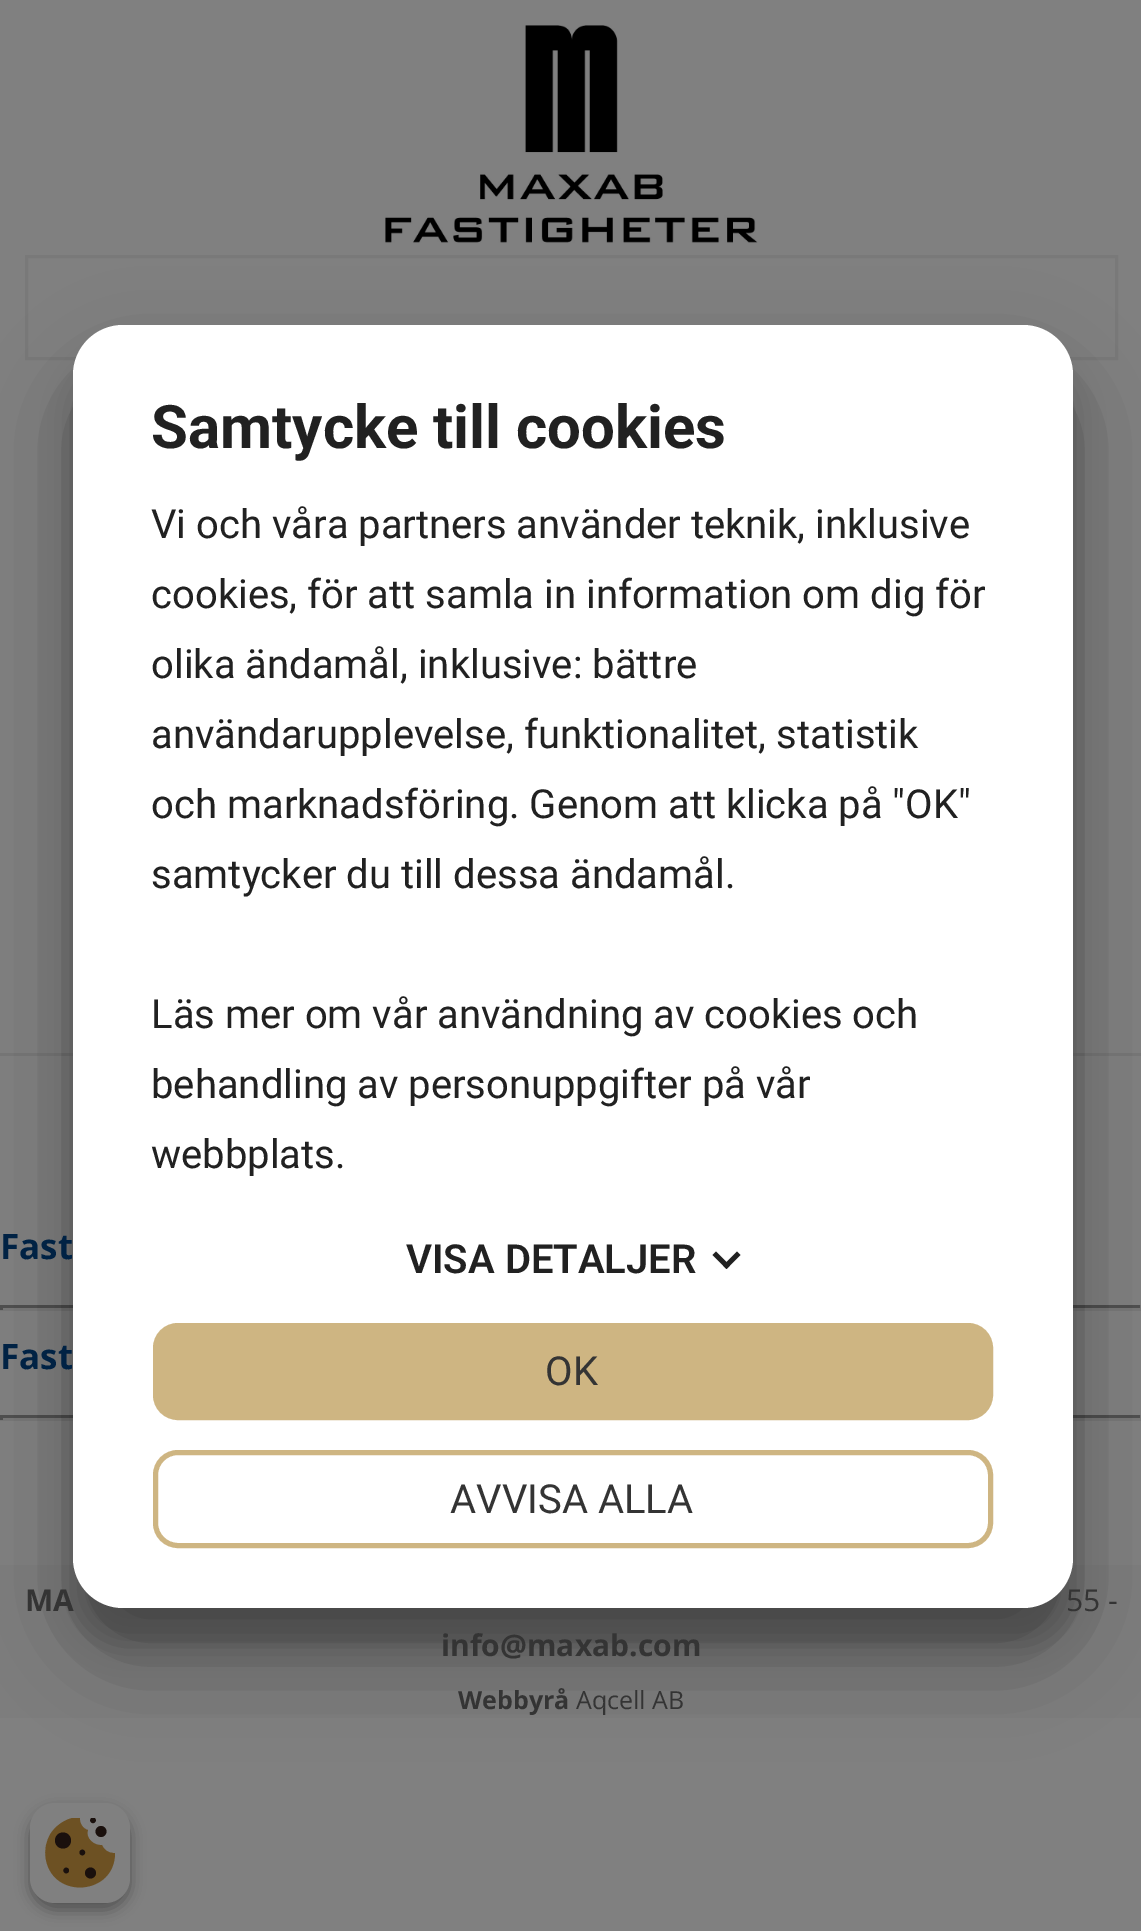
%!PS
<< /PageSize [1141 1931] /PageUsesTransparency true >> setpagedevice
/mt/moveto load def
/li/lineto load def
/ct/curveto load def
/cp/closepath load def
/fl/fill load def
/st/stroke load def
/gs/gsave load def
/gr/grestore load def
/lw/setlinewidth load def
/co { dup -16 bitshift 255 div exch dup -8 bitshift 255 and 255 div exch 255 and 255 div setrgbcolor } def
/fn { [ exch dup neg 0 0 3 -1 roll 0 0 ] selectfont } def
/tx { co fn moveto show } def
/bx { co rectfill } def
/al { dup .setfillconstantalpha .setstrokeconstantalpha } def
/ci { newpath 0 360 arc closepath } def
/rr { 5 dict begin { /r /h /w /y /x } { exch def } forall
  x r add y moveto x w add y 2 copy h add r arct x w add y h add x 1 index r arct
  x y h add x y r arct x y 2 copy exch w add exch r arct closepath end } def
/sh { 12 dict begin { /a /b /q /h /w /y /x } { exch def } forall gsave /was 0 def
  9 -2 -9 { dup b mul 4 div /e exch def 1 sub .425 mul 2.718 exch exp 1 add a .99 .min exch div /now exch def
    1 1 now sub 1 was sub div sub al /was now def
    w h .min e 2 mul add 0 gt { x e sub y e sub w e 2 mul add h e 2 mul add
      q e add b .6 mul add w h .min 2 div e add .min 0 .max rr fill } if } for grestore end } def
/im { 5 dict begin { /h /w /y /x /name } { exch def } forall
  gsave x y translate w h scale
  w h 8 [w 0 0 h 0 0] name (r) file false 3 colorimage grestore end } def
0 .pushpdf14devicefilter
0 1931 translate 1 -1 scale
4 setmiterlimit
0 0 1141 1931 16#808080 bx
(media/1.raw) 385 25 373 218 im
16#797979 co
3 lw
26.5 256.5 1090 102 rectstroke
0 1053 1141 3 16#777777 bx
0 1305 1141 3 16#505050 bx
1140 1305 1 5 16#777777 bx
0 1308 1141 3 16#777777 bx
0 1305 3 5 16#505050 bx
0 1415 1141 3 16#505050 bx
1140 1415 1 5 16#777777 bx
0 1418 1141 3 16#777777 bx
0 1415 3 5 16#505050 bx
0 1565 1141 153 16#7D7D7D bx
16#000000 co
73 363 1000 1282 50 15 .22 sh
73 373 1000 1282 50 47.5 .3 sh
30 1810 100 100 25 7.5 .23 sh
30 1810 100 100 25 7.5 .16 sh
16#808080 co
30 1803 100 100 25 rr fl
gs
45 1818 70 70 rectclip
16#6D5123 co
114 1853 mt 108 1853 104 1850 102 1845 ct 94 1846 85 1838 88 1830 ct 83 1829 79 1823 80 1817 ct 69 1817 58 1823 51 1833 ct 46 1841 44 1850 46 1860 ct 54 1900 115 1895 115 1853 ct cp fl
gr
16#1A100D co
101 1831.5 5.5 ci fl
90.5 1873 5.5 ci fl
63 1840.5 8 ci fl
gs
45 1818 70 70 rectclip
93 1820.3 2.8 ci fl
gr
82.3 1852.5 2.8 ci fl
66.2 1870.5 2.8 ci fl
(Fast) 0 1259 /OpenSans-Bold 35 16#002244 tx
(Fast) 0 1369 /OpenSans-Bold 35 16#002244 tx
(MA) 25 1611 /OpenSans-Bold 30 16#343434 tx
(55 -) 1066 1611 /OpenSans-Regular 30 16#343434 tx
16#FFFFFF co
73 325 1000 1283 50 rr fl
16#CEB582 co
155.5 1325.5 835 92 22.5 rr gs fl gr
5 lw
st
(OK) 545 1385 /Roboto-Regular 40 16#343434 tx
16#CEB582 co
155.5 1452.5 835 93 22.5 rr st
(AVVISA ALLA) 450 1513 /Roboto-Regular 40 16#343434 tx
16#212121 co
737 1251.5 mt 740.5 1255 li 726.5 1269 li 723 1265.5 li cp fl
716 1251.5 mt 730 1265.5 li 726.5 1269 li 712.5 1255 li cp fl
(VISA DETALJER) 406 1273 /Roboto-SemiBold 40 16#212121 tx
(webbplats.) 151 1168 /Roboto-Regular 40 16#212121 tx
(behandling av personuppgifter på vår) 151 1098 /Roboto-Regular 40 16#212121 tx
(Läs mer om vår användning av cookies och) 151 1028 /Roboto-Regular 40 16#212121 tx
(samtycker du till dessa ändamål.) 151 888 /Roboto-Regular 40 16#212121 tx
(och marknadsföring. Genom att klicka på "OK") 151 818 /Roboto-Regular 40 16#212121 tx
(användarupplevelse, funktionalitet, statistik) 151 748 /Roboto-Regular 40 16#212121 tx
(olika ändamål, inklusive: bättre) 151 678 /Roboto-Regular 40 16#212121 tx
(cookies, för att samla in information om dig för) 151 608 /Roboto-Regular 40 16#212121 tx
(Vi och våra partners använder teknik, inklusive) 151 538 /Roboto-Regular 40 16#212121 tx
(Samtycke till cookies) 151 448 /Roboto-Bold 60 16#212121 tx
(info@maxab.com) 441 1656 /OpenSans-Bold 30 16#343434 tx
(Webbyrå) 458 1709 /OpenSans-Bold 25 16#343434 tx
(Aqcell AB) 576 1709 /OpenSans-Regular 25 16#343434 tx
.poppdf14devicefilter showpage
